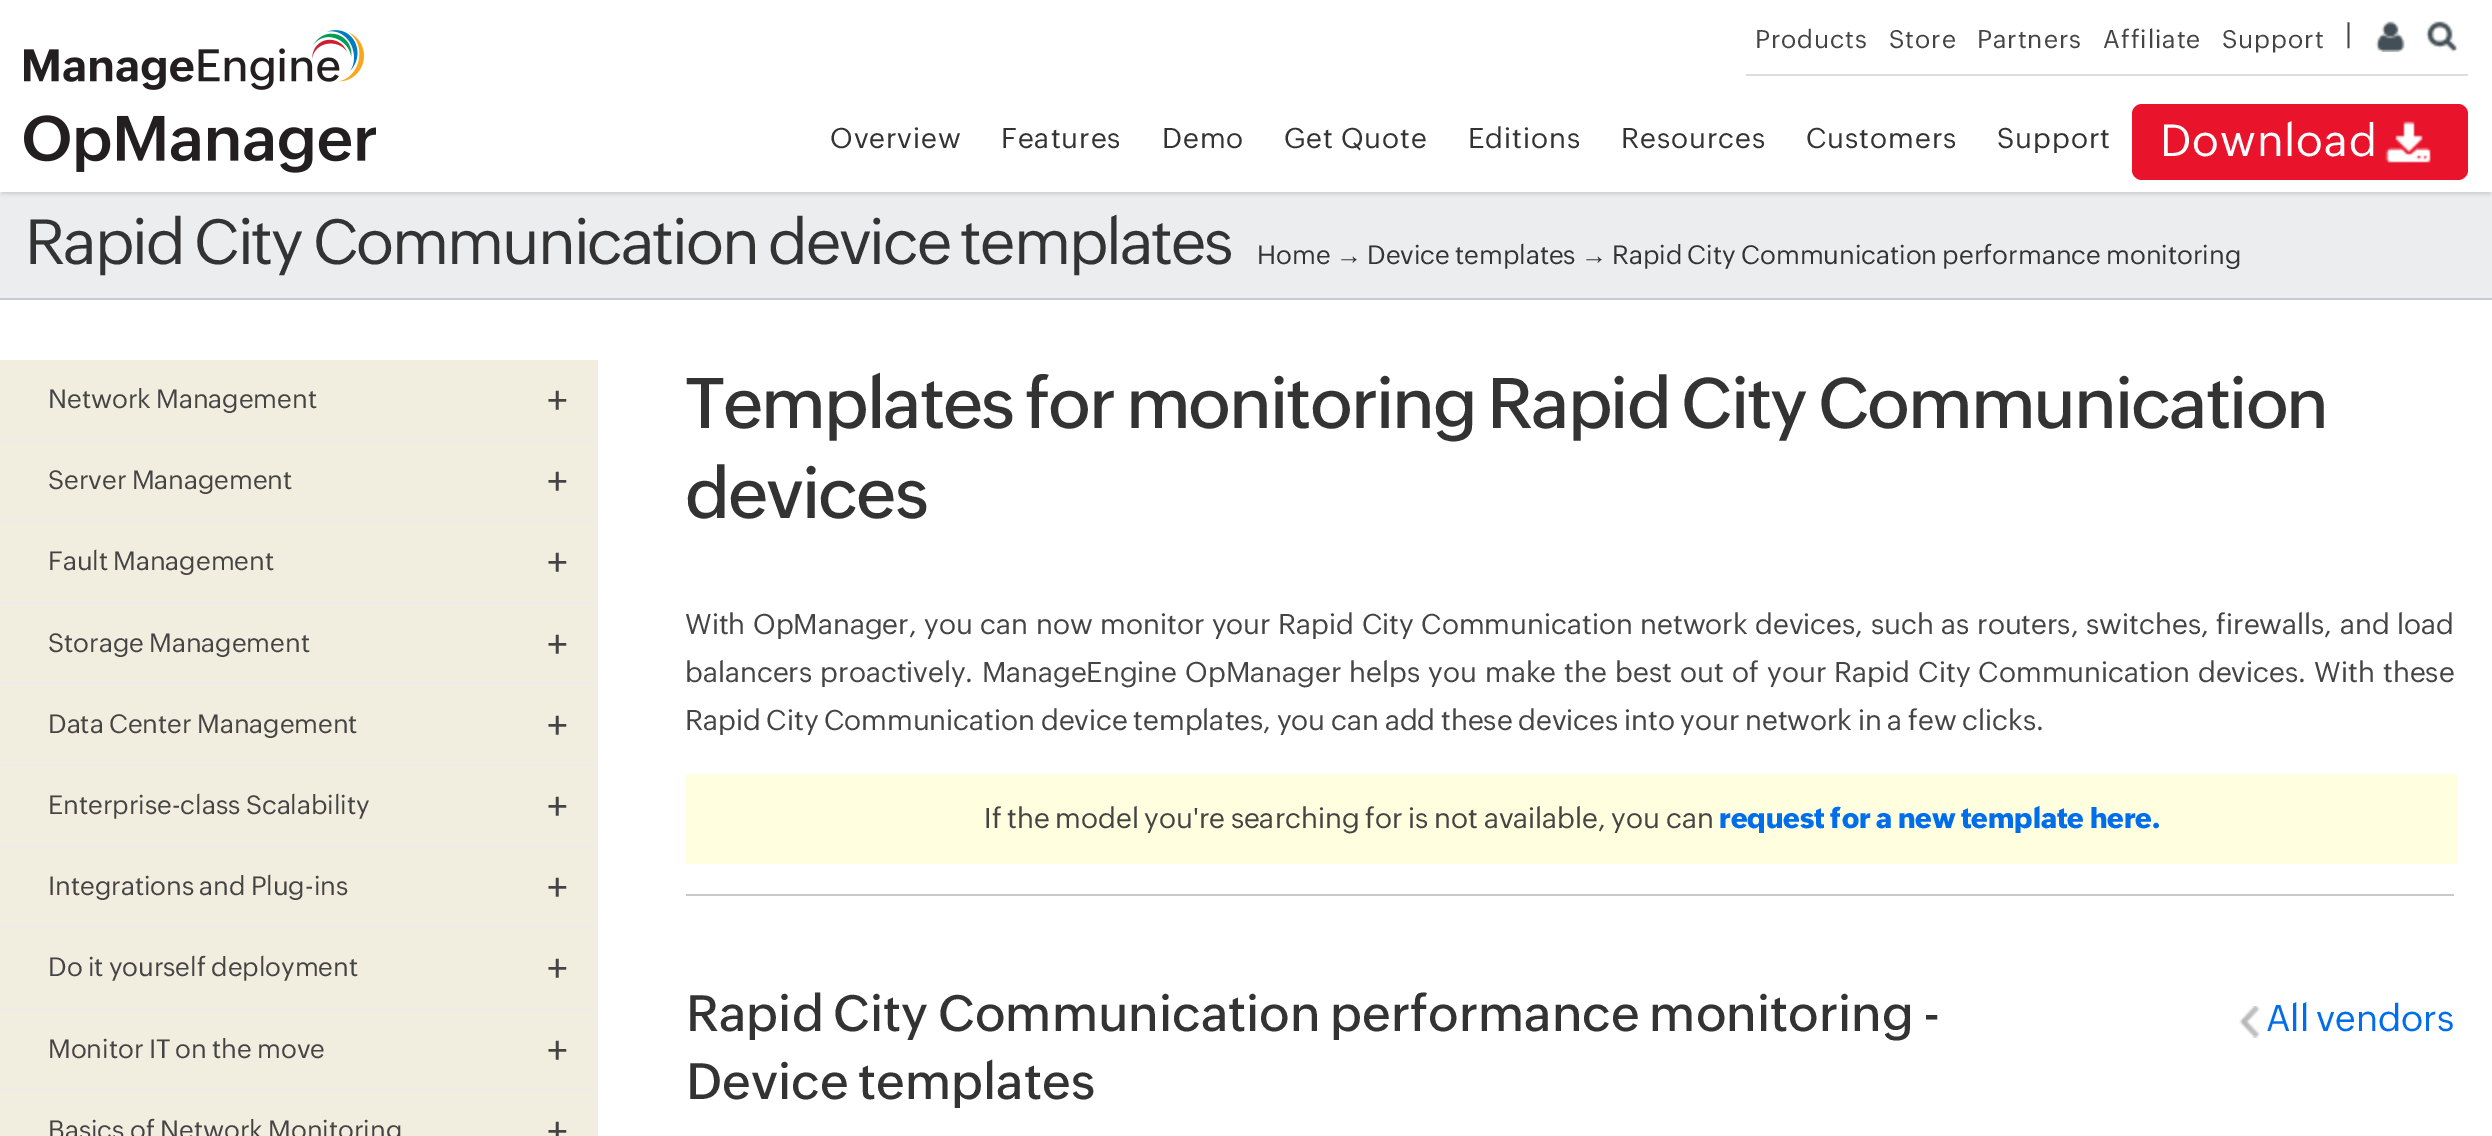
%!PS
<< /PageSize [2492 1136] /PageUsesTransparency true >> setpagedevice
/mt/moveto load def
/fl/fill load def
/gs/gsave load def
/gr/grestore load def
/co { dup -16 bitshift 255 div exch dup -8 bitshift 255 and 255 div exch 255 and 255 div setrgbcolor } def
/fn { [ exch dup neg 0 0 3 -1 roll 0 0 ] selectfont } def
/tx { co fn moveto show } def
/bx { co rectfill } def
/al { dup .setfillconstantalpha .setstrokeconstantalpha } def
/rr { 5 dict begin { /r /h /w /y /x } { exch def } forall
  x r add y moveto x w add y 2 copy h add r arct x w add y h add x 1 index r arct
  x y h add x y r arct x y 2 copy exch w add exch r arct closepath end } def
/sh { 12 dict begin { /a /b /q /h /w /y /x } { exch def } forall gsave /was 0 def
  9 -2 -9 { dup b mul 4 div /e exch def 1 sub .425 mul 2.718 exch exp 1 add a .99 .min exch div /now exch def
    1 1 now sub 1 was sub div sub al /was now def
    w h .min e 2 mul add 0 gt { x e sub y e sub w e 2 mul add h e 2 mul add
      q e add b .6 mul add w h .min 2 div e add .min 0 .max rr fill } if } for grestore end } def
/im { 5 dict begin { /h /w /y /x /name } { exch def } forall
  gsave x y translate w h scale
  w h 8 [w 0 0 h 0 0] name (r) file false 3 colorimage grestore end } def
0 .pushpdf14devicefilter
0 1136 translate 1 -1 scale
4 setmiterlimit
0 0 2492 1136 16#FFFFFF bx
(media/1.raw) 24 30 340 60 im
1746 74 722 2 16#DDDDDD bx
(media/2.raw) 2375 21 30 31 im
(media/3.raw) 2426 21 32 32 im
0 192 2492 106 16#ECEDEE bx
gs
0 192 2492 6 rectclip
16#CCCCCC co
2 100 2488 94 0 2 1 sh
gr
(media/4.raw) 24 115 352 58 im
16#E9142B co
2132 104 336 76 10 rr fl
(media/5.raw) 2385 121 46 42 im
0 298 2492 2 16#C5CBD4 bx
0 360 598 80 16#F1EDDF bx
0 440 598 2 16#ECECEC bx
0 442 598 78 16#F1EDDF bx
0 520 598 2 16#ECECEC bx
0 522 598 80 16#F1EDDF bx
0 602 598 2 16#ECECEC bx
0 604 598 78 16#F1EDDF bx
0 682 598 2 16#ECECEC bx
0 684 598 80 16#F1EDDF bx
0 764 598 2 16#ECECEC bx
0 766 598 80 16#F1EDDF bx
0 846 598 2 16#ECECEC bx
0 848 598 78 16#F1EDDF bx
0 926 598 2 16#ECECEC bx
0 928 598 80 16#F1EDDF bx
0 1008 598 2 16#ECECEC bx
0 1010 598 78 16#F1EDDF bx
0 1088 598 2 16#ECECEC bx
0 1090 598 46 16#F1EDDF bx
686 774 1772 90 16#FFFFE0 bx
686 894 1768 2 16#C8C8C8 bx
(media/6.raw) 2239 1006 21 32 im
/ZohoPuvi-Regular 25 fn
16#444444 co
1755 48 mt 1 0 (Products) ashow
1889 48 mt 1 0 (Store) ashow
1977 48 mt 1 0 (Partners) ashow
2103 48 mt 1 0 (Affiliate) ashow
2222 48 mt 1 0 (Support) ashow
/ZohoPuvi-Regular 28 fn
2345 44 mt 1 0 (|) ashow
16#333333 co
830 148 mt 1 0 (Overview) ashow
1001 148 mt 1 0 (Features) ashow
1162 148 mt 1 0 (Demo) ashow
1284 148 mt 1 0 (Get Quote) ashow
1468 148 mt 1 0 (Editions) ashow
1621 148 mt 1 0 (Resources) ashow
1806 148 mt 1 0 (Customers) ashow
1997 148 mt 1 0 (Support) ashow
/ZohoPuvi-Regular 44 fn
16#FFFFFF co
2160 156 mt 1 0 (Download) ashow
/ZohoPuvi-Regular 62.4 fn
16#333333 co
25 264 mt -2 0 (Rapid City Communication device templates) ashow
(Home) 1257 264 /ZohoPuvi-Regular 26 16#333333 tx
(→) 1336 264 /LiberationSans-Regular 26 16#333333 tx
(Device templates) 1367 264 /ZohoPuvi-Regular 26 16#333333 tx
(→) 1581 264 /LiberationSans-Regular 26 16#333333 tx
(Rapid City Communication performance monitoring) 1612 264 /ZohoPuvi-Regular 26 16#333333 tx
(Network Management) 48 408 /ZohoPuvi-Regular 26 16#444444 tx
(+) 547 414 /ZohoPuvi-Regular 40 16#444444 tx
(Server Management) 48 489 /ZohoPuvi-Regular 26 16#444444 tx
(+) 547 495 /ZohoPuvi-Regular 40 16#444444 tx
(Fault Management) 48 570 /ZohoPuvi-Regular 26 16#444444 tx
(+) 547 576 /ZohoPuvi-Regular 40 16#444444 tx
(Storage Management) 48 652 /ZohoPuvi-Regular 26 16#444444 tx
(+) 547 658 /ZohoPuvi-Regular 40 16#444444 tx
(Data Center Management) 48 733 /ZohoPuvi-Regular 26 16#444444 tx
(+) 547 739 /ZohoPuvi-Regular 40 16#444444 tx
(Enterprise-class Scalability) 48 814 /ZohoPuvi-Regular 26 16#444444 tx
(+) 547 820 /ZohoPuvi-Regular 40 16#444444 tx
(Integrations and Plug-ins) 48 895 /ZohoPuvi-Regular 26 16#444444 tx
(+) 547 901 /ZohoPuvi-Regular 40 16#444444 tx
(Do it yourself deployment) 48 976 /ZohoPuvi-Regular 26 16#444444 tx
(+) 547 982 /ZohoPuvi-Regular 40 16#444444 tx
(Monitor IT on the move) 48 1058 /ZohoPuvi-Regular 26 16#444444 tx
(+) 547 1064 /ZohoPuvi-Regular 40 16#444444 tx
(Basics of Network Monitoring) 48 1139 /ZohoPuvi-Regular 26 16#444444 tx
(+) 547 1145 /ZohoPuvi-Regular 40 16#444444 tx
/ZohoPuvi-Medium 70 fn
16#333333 co
685 428 mt -2 0 (Templates for monitoring Rapid City Communication) ashow
685 518 mt -2 0 (devices) ashow
/ZohoPuvi-Regular 28 fn
16#444444 co
685 634 mt 2 0 32 (With OpManager, you can now monitor your Rapid City Communication network devices, such as routers, switches, firewalls, and load) widthshow
685 682 mt 2.6 0 32 (balancers proactively. ManageEngine OpManager helps you make the best out of your Rapid City Communication devices. With these) widthshow
(Rapid City Communication device templates, you can add these devices into your network in a few clicks.) 685 730 /ZohoPuvi-Regular 28 16#444444 tx
(If the model you're searching for is not available, you can) 984 828 /ZohoPuvi-Regular 28 16#444444 tx
(request for a new template here.) 1719 828 /ZohoPuvi-ExtraBold 28 16#006DEB tx
(Rapid City Communication performance monitoring -) 686 1031 /ZohoPuvi-Medium 50 16#333333 tx
(Device templates) 686 1099 /ZohoPuvi-Medium 50 16#333333 tx
(All vendors) 2266 1031 /ZohoPuvi-Regular 36.5 16#006DEB tx
.poppdf14devicefilter showpage
